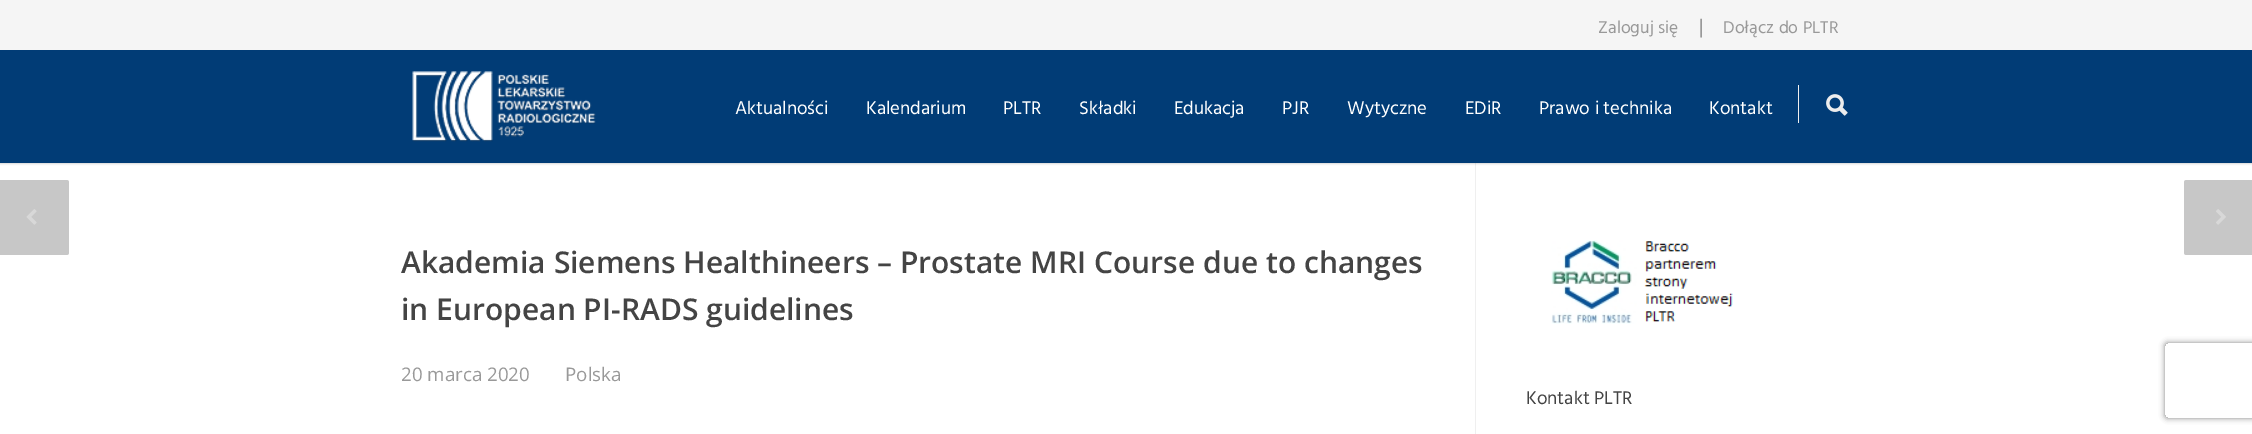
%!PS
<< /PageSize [2252 434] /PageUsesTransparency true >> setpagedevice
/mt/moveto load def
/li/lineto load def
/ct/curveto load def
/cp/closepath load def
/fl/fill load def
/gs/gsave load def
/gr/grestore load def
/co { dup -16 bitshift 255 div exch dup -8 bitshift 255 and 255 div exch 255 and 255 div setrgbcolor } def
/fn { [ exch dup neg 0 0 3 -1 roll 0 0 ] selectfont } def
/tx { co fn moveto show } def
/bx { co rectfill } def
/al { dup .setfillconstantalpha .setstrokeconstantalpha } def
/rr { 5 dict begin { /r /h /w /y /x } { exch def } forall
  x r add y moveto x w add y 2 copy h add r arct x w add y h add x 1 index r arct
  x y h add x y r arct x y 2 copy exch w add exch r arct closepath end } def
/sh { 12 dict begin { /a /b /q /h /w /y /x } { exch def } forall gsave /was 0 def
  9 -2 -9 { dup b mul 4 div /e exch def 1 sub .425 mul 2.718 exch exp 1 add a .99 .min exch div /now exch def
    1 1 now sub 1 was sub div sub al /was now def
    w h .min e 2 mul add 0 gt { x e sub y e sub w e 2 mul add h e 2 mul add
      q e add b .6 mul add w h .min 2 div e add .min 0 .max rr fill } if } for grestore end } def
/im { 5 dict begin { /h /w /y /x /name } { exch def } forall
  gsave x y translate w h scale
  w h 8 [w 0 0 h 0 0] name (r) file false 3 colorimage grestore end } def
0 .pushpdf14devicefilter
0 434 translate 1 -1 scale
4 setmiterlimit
0 0 2252 434 16#FFFFFF bx
1475 163 1 271 16#EFEFEF bx
16#000000 co
-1 49 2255 115 0 1 .16 sh
0 0 2252 50 16#F5F5F5 bx
0 50 2252 113 16#013C76 bx
(media/1.raw) 412 71 184 71 im
1798 85 1 38 16#EFEFEF bx
(media/2.raw) 1826 94 22 22 im
16#C7C7C7 co
-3 180 mt 66.5 180 li 68 180 69 181 69 182.5 ct 69 252.5 li 69 254 68 255 66.5 255 ct -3 255 li cp fl
(media/3.raw) 26 209 11 16 im
2186.5 180 mt 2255 180 li 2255 255 li 2186.5 255 li 2185 255 2184 254 2184 252.5 ct 2184 182.5 li 2184 181 2185 180 2186.5 180 ct cp fl
(media/4.raw) 2216 209 10 16 im
(media/5.raw) 1551 240 182 84 im
gs
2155 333 mt 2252 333 li 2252 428 li 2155 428 li cp 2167.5 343 mt 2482.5 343 li 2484 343 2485 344 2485 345.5 ct 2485 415.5 li 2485 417 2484 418 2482.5 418 ct 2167.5 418 li 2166 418 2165 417 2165 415.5 ct 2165 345.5 li 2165 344 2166 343 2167.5 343 ct cp eoclip newpath
16#808080 co
2165 343 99 75 2.5 3 1 sh
gr
(Zaloguj się) 1598 33 /Hind-Regular 17.5 16#999999 tx
(|) 1696 33 /OpenSans-Regular 18.75 16#777777 tx
(Dołącz do PLTR) 1723 33 /Hind-Regular 17.5 16#999999 tx
(Aktualności) 735 114 /Hind-Regular 18.75 16#FFFFFF tx
(Kalendarium) 866 114 /Hind-Regular 18.75 16#FFFFFF tx
(PLTR) 1003 114 /Hind-Regular 18.75 16#FFFFFF tx
(Składki) 1079 114 /Hind-Regular 18.75 16#FFFFFF tx
(Edukacja) 1174 114 /Hind-Regular 18.75 16#FFFFFF tx
(PJR) 1282 114 /Hind-Regular 18.75 16#FFFFFF tx
(Wytyczne) 1347 114 /Hind-Regular 18.75 16#FFFFFF tx
(EDiR) 1465 114 /Hind-Regular 18.75 16#FFFFFF tx
(Prawo i technika) 1539 114 /Hind-Regular 18.75 16#FFFFFF tx
(Kontakt) 1709 114 /Hind-Regular 18.75 16#FFFFFF tx
(Akademia Siemens Healthineers – Prostate MRI Course due to changes) 401 273 /OpenSans-SemiBold 30 16#444444 tx
(in European PI-RADS guidelines) 401 320 /OpenSans-SemiBold 30 16#444444 tx
(20 marca 2020) 401 381 /OpenSans-Regular 18.75 16#999999 tx
(Polska) 565 381 /OpenSans-Regular 18.75 16#999999 tx
(Kontakt PLTR) 1526 404 /Hind-Regular 18.75 16#444444 tx
.poppdf14devicefilter showpage
